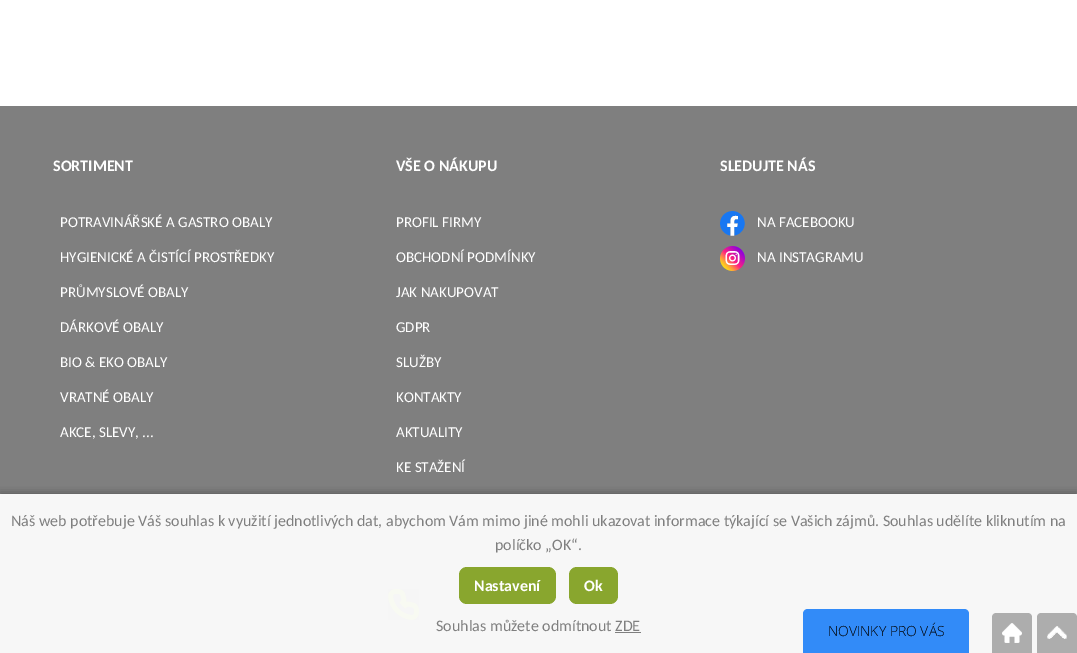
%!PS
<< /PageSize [1077 653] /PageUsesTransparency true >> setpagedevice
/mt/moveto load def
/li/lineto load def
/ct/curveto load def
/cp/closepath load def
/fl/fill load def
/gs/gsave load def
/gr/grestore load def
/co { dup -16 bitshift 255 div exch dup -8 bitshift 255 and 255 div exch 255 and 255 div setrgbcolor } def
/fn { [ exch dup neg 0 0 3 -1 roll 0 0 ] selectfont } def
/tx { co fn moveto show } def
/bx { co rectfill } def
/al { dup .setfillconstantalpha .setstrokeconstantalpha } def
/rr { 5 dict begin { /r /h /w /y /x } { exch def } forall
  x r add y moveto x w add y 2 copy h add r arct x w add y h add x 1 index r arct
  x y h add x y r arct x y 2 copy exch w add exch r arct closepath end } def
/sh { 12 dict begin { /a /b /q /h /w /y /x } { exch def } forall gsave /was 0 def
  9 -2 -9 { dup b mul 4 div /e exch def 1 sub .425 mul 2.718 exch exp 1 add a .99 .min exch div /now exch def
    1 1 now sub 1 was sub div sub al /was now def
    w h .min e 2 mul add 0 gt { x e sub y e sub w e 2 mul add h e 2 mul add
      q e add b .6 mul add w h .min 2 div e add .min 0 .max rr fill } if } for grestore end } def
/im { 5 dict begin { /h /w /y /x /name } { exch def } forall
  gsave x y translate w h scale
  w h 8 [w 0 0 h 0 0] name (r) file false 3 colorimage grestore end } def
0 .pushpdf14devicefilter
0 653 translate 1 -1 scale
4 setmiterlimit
0 0 1077 653 16#FFFFFF bx
0 106 1077 388 16#7F7F7F bx
0 494 1077 159 16#F7F7F7 bx
(media/1.raw) 720 211 25 25 im
(media/2.raw) 720 246 25 25 im
(media/3.raw) 388 589 31 31 im
gs
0 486 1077 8 rectclip
16#000000 co
0 492 1077 159 0 4 .25 sh
gr
16#89A62E co
459 567 97 37 8 rr fl
569 567 49 37 8 rr fl
615 632 26 1 16#7F7F7F bx
16#328BF8 co
808 609 mt 964 609 li 967 609 969 611 969 614 ct 969 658 li 803 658 li 803 614 li 803 611 805 609 808 609 ct cp fl
16#ADADAD co
996 613 mt 1028 613 li 1030 613 1032 615 1032 617 ct 1032 653 li 992 653 li 992 617 li 992 615 994 613 996 613 ct cp fl
(media/4.raw) 1002 623 20 20 im
1041 613 mt 1073 613 li 1075 613 1077 615 1077 617 ct 1077 653 li 1037 653 li 1037 617 li 1037 615 1039 613 1041 613 ct cp fl
(media/5.raw) 1047 626 20 13 im
(SORTIMENT) 53 171 /Carlito-Bold 16 16#FFFFFF tx
(POTRAVINÁŘSKÉ A GASTRO OBALY) 60 227 /Carlito-Regular 15 16#FFFFFF tx
(HYGIENICKÉ A ČISTÍCÍ PROSTŘEDKY) 60 262 /Carlito-Regular 15 16#FFFFFF tx
(PRŮMYSLOVÉ OBALY) 60 297 /Carlito-Regular 15 16#FFFFFF tx
(DÁRKOVÉ OBALY) 60 332 /Carlito-Regular 15 16#FFFFFF tx
(BIO & EKO OBALY) 60 367 /Carlito-Regular 15 16#FFFFFF tx
(VRATNÉ OBALY) 60 402 /Carlito-Regular 15 16#FFFFFF tx
(AKCE, SLEVY, ...) 60 437 /Carlito-Regular 15 16#FFFFFF tx
(VŠE O NÁKUPU) 396 171 /Carlito-Bold 16 16#FFFFFF tx
(PROFIL FIRMY) 396 227 /Carlito-Regular 15 16#FFFFFF tx
(OBCHODNÍ PODMÍNKY) 396 262 /Carlito-Regular 15 16#FFFFFF tx
(JAK NAKUPOVAT) 396 297 /Carlito-Regular 15 16#FFFFFF tx
(GDPR) 396 332 /Carlito-Regular 15 16#FFFFFF tx
(SLUŽBY) 396 367 /Carlito-Regular 15 16#FFFFFF tx
(KONTAKTY) 396 402 /Carlito-Regular 15 16#FFFFFF tx
(AKTUALITY) 396 437 /Carlito-Regular 15 16#FFFFFF tx
(KE STAŽENÍ) 396 472 /Carlito-Regular 15 16#FFFFFF tx
(SLEDUJTE NÁS) 720 171 /Carlito-Bold 16 16#FFFFFF tx
(NA FACEBOOKU) 757 227 /Carlito-Regular 15 16#FFFFFF tx
(NA INSTAGRAMU) 757 262 /Carlito-Regular 15 16#FFFFFF tx
(Náš web potřebuje Váš souhlas k využití jednotlivých dat, abychom Vám mimo jiné mohli ukazovat informace týkající se Vašich zájmů. Souhlas udělíte kliknutím na) 11 526 /Carlito-Regular 16 16#7F7F7F tx
(políčko „OK“.) 495 550 /Carlito-Regular 16 16#7F7F7F tx
(Nastavení) 474 591 /Carlito-Bold 16 16#FFFFFF tx
(Ok) 584 591 /Carlito-Bold 16 16#FFFFFF tx
(Souhlas můžete odmítnout ZDE) 436 631 /Carlito-Regular 16 16#7F7F7F tx
(NOVINKY PRO VÁS) 828 636 /OpenSans-Light 14 16#000000 tx
.poppdf14devicefilter showpage
